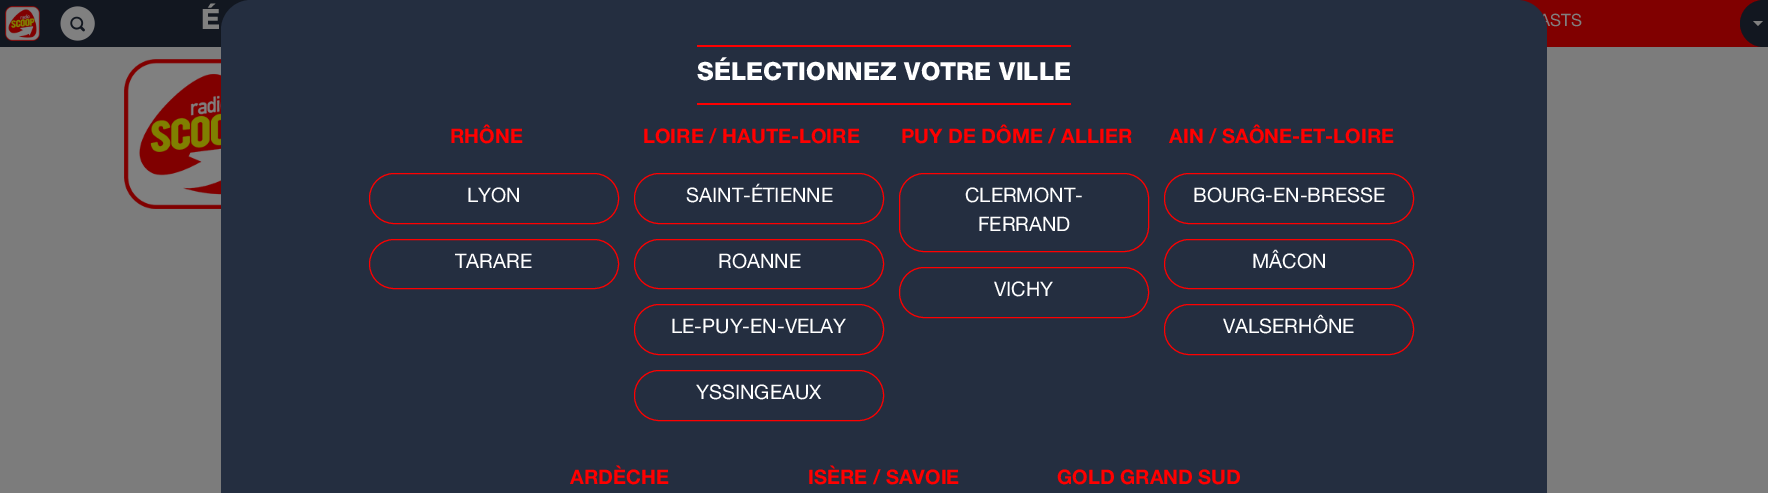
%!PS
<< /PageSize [1768 493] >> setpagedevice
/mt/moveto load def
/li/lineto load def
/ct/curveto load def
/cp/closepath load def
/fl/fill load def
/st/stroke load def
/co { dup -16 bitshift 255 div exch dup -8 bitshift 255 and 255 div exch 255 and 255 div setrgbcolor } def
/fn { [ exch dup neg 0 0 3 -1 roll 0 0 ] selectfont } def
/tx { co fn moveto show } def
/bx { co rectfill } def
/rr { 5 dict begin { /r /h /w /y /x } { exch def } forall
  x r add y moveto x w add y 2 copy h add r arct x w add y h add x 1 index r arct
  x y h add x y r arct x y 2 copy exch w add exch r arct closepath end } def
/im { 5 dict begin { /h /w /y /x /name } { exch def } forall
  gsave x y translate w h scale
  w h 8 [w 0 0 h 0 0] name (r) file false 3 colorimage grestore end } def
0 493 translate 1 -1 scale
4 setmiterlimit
0 0 1768 493 16#7C7C7C bx
1517 0 246 47 16#800000 bx
0 0 251 47 16#121720 bx
(media/1.raw) 5 6 35 35 im
(media/2.raw) 60 6 35 35 im
1763.5 0 mt 1768 0 li 1768 47 li 1763.5 47 li 1750.5 47 1740 36.5 1740 23.5 ct 1740 10.5 1750.5 0 1763.5 0 ct cp fl
16#808080 co
1753 21 mt 1763 21 li 1758 26 li cp fl
(media/3.raw) 124 59 97 150 im
(É) 201 29 /HelveticaNeue-Bold 28 16#808080 tx
(ASTS) 1539 26 /HelveticaNeue-Regular 17 16#808080 tx
16#242E40 co
251 0 mt 1517 0 li 1533.5 0 1547 13.5 1547 30 ct 1547 493 li 221 493 li 221 30 li 221 13.5 234.5 0 251 0 ct cp fl
697 45 374 2 16#FF0000 bx
697 103 374 2 16#FF0000 bx
(SÉLECTIONNEZ VOTRE VILLE) 697 80 /HelveticaNeue-Bold 25 16#FFFFFF tx
(RHÔNE) 450 143 /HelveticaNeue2-Bold 20 16#FF0000 tx
369.5 173.5 249 50 24.5 rr st
(LYON) 467 202 /HelveticaNeue-Regular 20 16#FFFFFF tx
16#FF0000 co
369.5 239.5 249 49 24.5 rr st
(TARARE) 455 268 /HelveticaNeue-Regular 20 16#FFFFFF tx
(LOIRE / HAUTE-LOIRE) 643 143 /HelveticaNeue2-Bold 20 16#FF0000 tx
634.5 173.5 249 50 24.5 rr st
(SAINT-ÉTIENNE) 686 202 /HelveticaNeue-Regular 20 16#FFFFFF tx
16#FF0000 co
634.5 239.5 249 49 24.5 rr st
(ROANNE) 718 268 /HelveticaNeue-Regular 20 16#FFFFFF tx
16#FF0000 co
634.5 304.5 249 50 24.5 rr st
(LE-PUY-EN-VELAY) 671 333 /HelveticaNeue-Regular 20 16#FFFFFF tx
16#FF0000 co
634.5 370.5 249 50 24.5 rr st
(YSSINGEAUX) 696 399 /HelveticaNeue-Regular 20 16#FFFFFF tx
(PUY DE DÔME / ALLIER) 901 143 /HelveticaNeue2-Bold 20 16#FF0000 tx
899.5 173.5 249 78 24.5 rr st
(CLERMONT-) 965 202 /HelveticaNeue-Regular 20 16#FFFFFF tx
(FERRAND) 978 231 /HelveticaNeue-Regular 20 16#FFFFFF tx
16#FF0000 co
899.5 267.5 249 50 24.5 rr st
(VICHY) 994 296 /HelveticaNeue-Regular 20 16#FFFFFF tx
(AIN / SAÔNE-ET-LOIRE) 1169 143 /HelveticaNeue2-Bold 20 16#FF0000 tx
1164.5 173.5 249 50 24.5 rr st
(BOURG-EN-BRESSE) 1193 202 /HelveticaNeue-Regular 20 16#FFFFFF tx
16#FF0000 co
1164.5 239.5 249 49 24.5 rr st
(MÂCON) 1252 268 /HelveticaNeue-Regular 20 16#FFFFFF tx
16#FF0000 co
1164.5 304.5 249 50 24.5 rr st
(VALSERHÔNE) 1223 333 /HelveticaNeue-Regular 20 16#FFFFFF tx
(ARDÈCHE) 570 484 /HelveticaNeue2-Bold 20 16#FF0000 tx
(ISÈRE / SAVOIE) 808 484 /HelveticaNeue2-Bold 20 16#FF0000 tx
(GOLD GRAND SUD) 1057 484 /HelveticaNeue2-Bold 20 16#FF0000 tx
showpage
